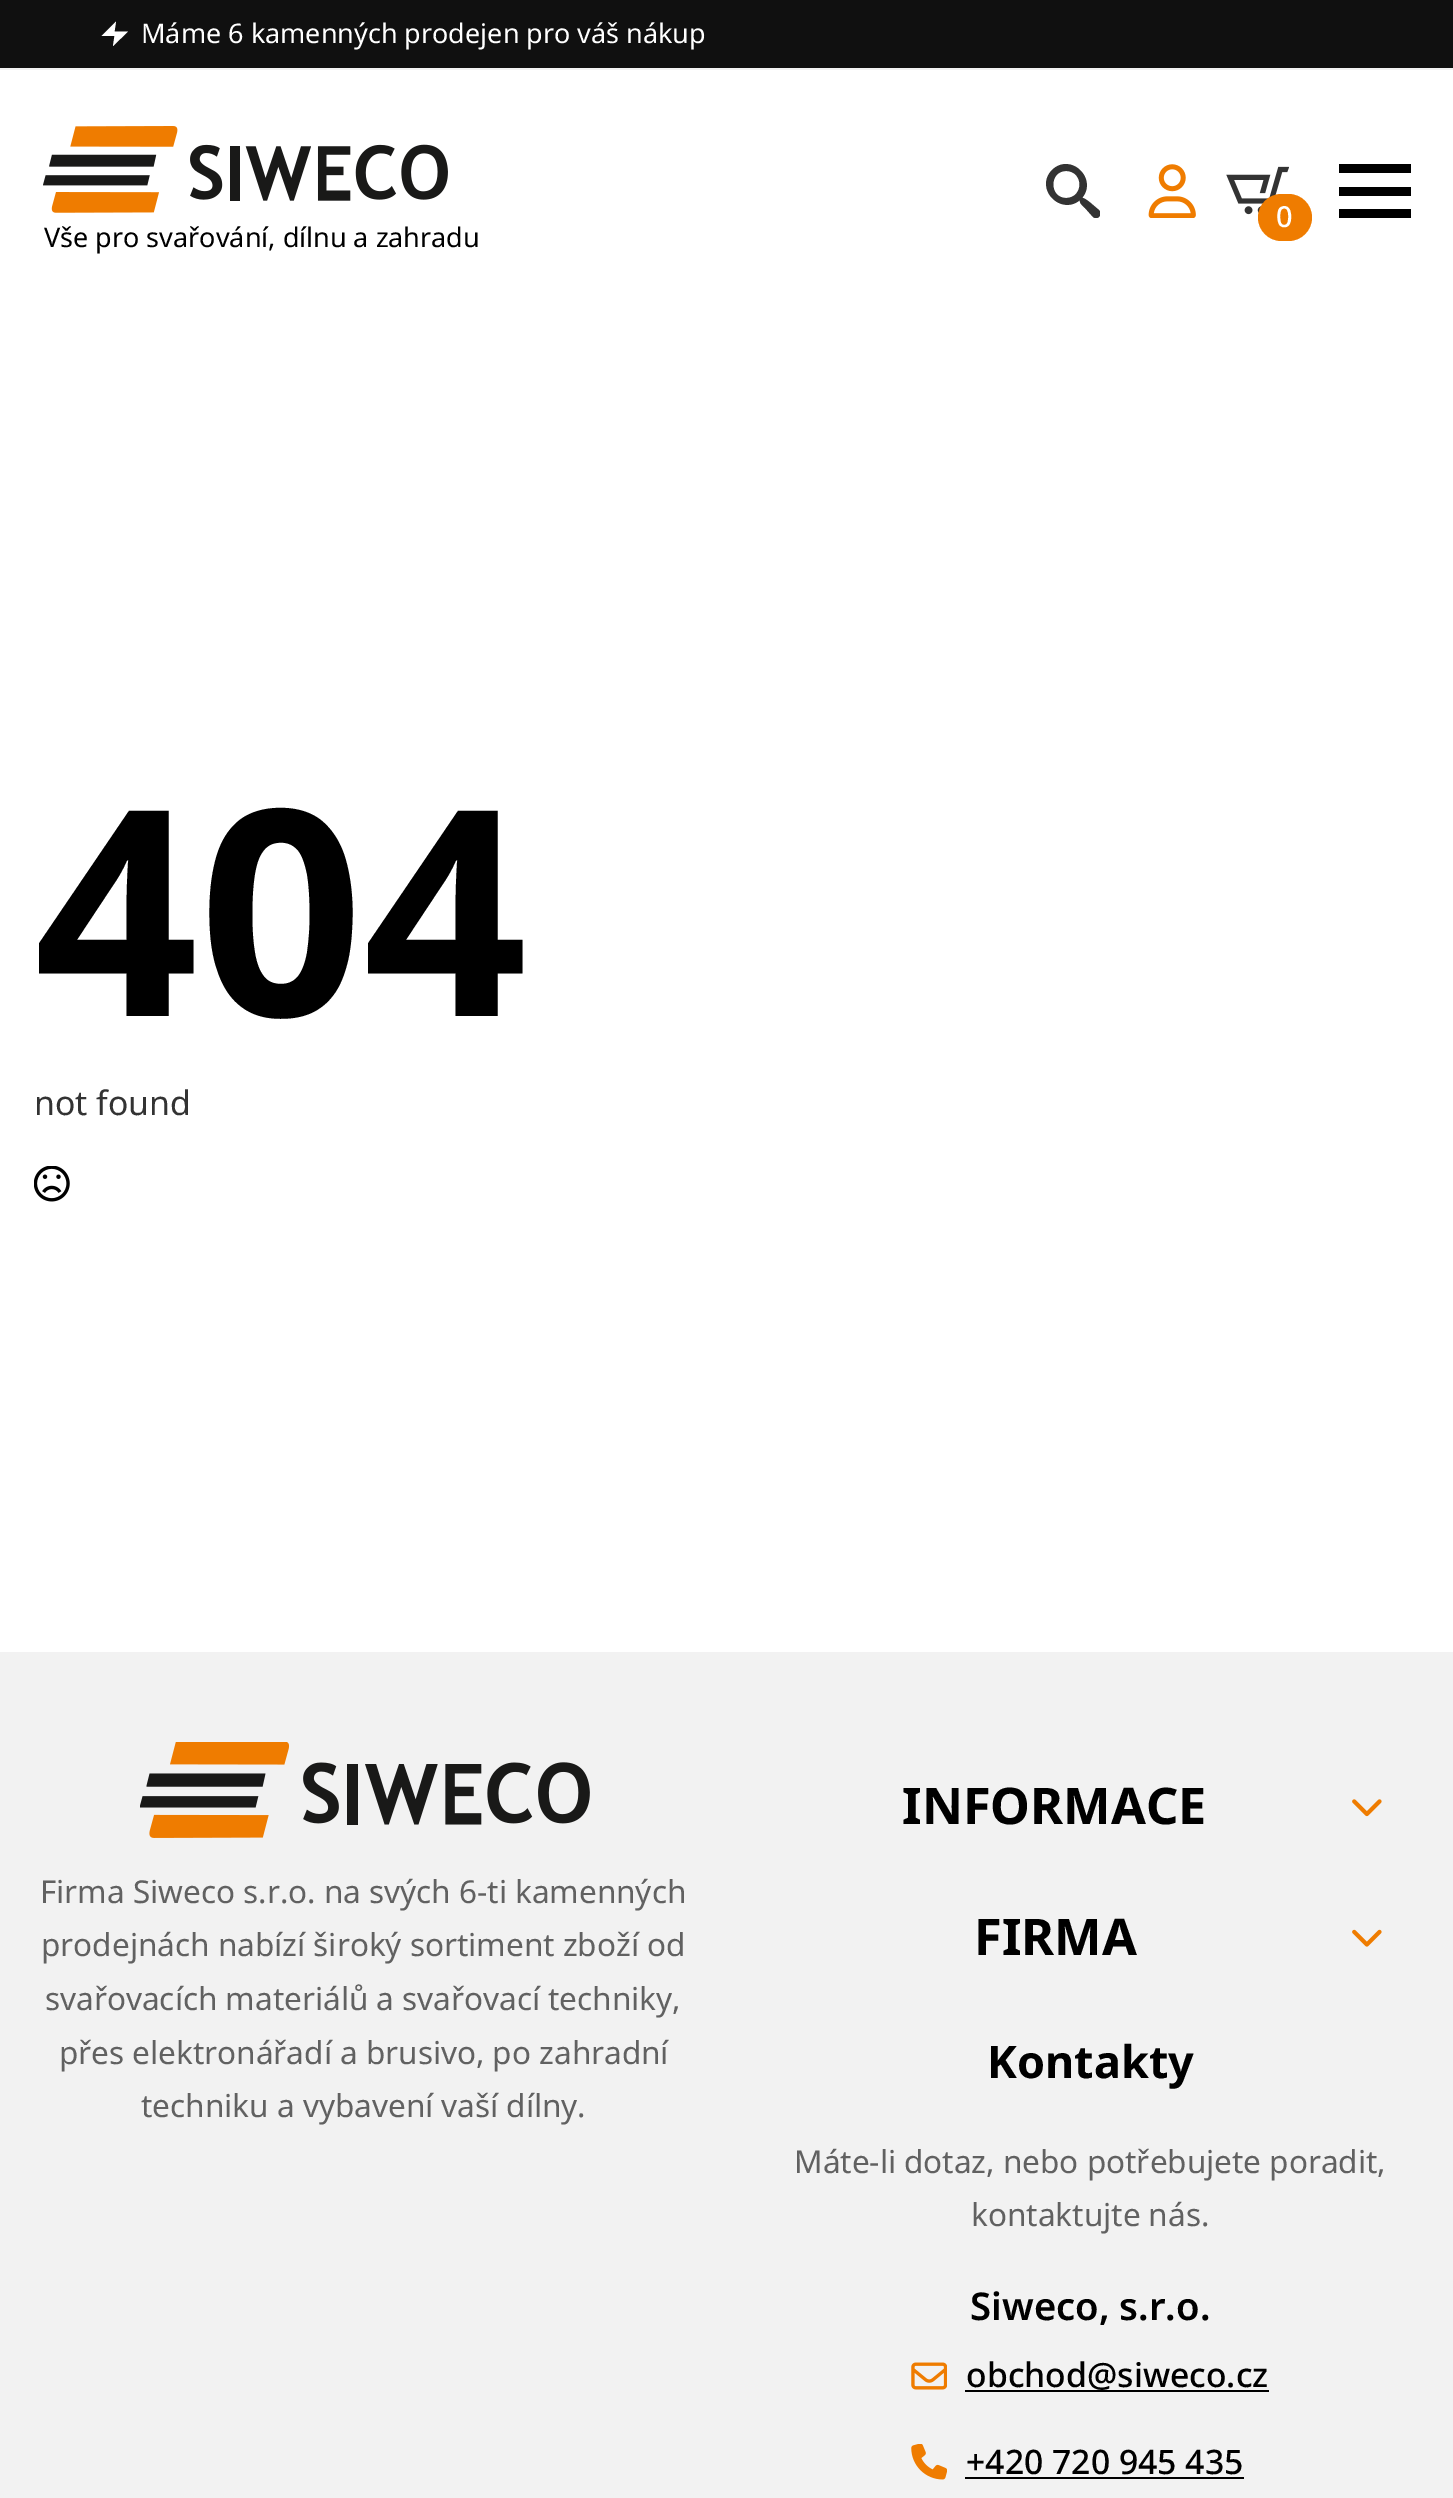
%!PS
<< /PageSize [1453 2498] >> setpagedevice
/mt/moveto load def
/li/lineto load def
/ct/curveto load def
/cp/closepath load def
/fl/fill load def
/gs/gsave load def
/gr/grestore load def
/co { dup -16 bitshift 255 div exch dup -8 bitshift 255 and 255 div exch 255 and 255 div setrgbcolor } def
/fn { [ exch dup neg 0 0 3 -1 roll 0 0 ] selectfont } def
/tx { co fn moveto show } def
/bx { co rectfill } def
/rr { 5 dict begin { /r /h /w /y /x } { exch def } forall
  x r add y moveto x w add y 2 copy h add r arct x w add y h add x 1 index r arct
  x y h add x y r arct x y 2 copy exch w add exch r arct closepath end } def
/im { 5 dict begin { /h /w /y /x /name } { exch def } forall
  gsave x y translate w h scale
  w h 8 [w 0 0 h 0 0] name (r) file false 3 colorimage grestore end } def
0 2498 translate 1 -1 scale
4 setmiterlimit
0 0 1453 2498 16#FFFFFF bx
0 0 1453 68 16#101010 bx
0 68 1453 2 16#F2F2F2 bx
16#FFFFFF co
116 21.5 mt 101.5 36 li 114.5 36 li 113 46 li 128 31.5 li 114.5 31.5 li cp fl
gs
1046 164 54 54 rectclip
16#333333 co
1099 210 mt 1096 208 1085 197 1082 198 ct 1098 179 1071 152 1052 170 ct 1034 189 1061 216 1080 200 ct 1079 203 1083 206 1085 208 ct 1093 217 li 1098 221 1103 214 1099 210 ct cp 1066 198 mt 1049 198 1049 171 1066 171 ct 1084 171 1084 198 1066 198 ct cp fl
gr
(media/1.raw) 1148 164 48 54 im
(media/2.raw) 1226 166 63 49 im
16#EF7C00 co
1258 194 54 47 23.5 rr fl
1339 187 72 9 16#000000 bx
1339 164 72 9 16#000000 bx
1339 209 72 9 16#000000 bx
(media/3.raw) 43 126 405 87 im
(media/4.raw) 34 1166 36 36 im
0 1652 1453 846 16#F2F2F2 bx
(media/5.raw) 140 1742 450 96 im
(media/6.raw) 1352 1799 30 18 im
(media/7.raw) 1352 1929 30 18 im
(media/8.raw) 911 2362 36 28 im
965 2390 304 2 16#000000 bx
(media/9.raw) 911 2444 36 36 im
965 2477 279 2 16#000000 bx
(Máme 6 kamenných prodejen pro váš nákup) 141 43 /NotoSans-Regular 27 16#FFFFFF tx
(0) 1276 227 /NotoSans-Medium 29 16#FFFFFF tx
(Vše pro svařování, dílnu a zahradu) 44 247 /NotoSans-Regular 27 16#000000 tx
(404) 34 1016 /NotoSans-Bold 288 16#000000 tx
(not found) 34 1115 /NotoSans-Regular 33.75 16#333333 tx
(Firma Siweco s.r.o. na svých 6-ti kamenných) 40 1903 /NotoSans-Regular 31.5 16#616161 tx
(prodejnách nabízí široký sortiment zboží od) 41 1956 /NotoSans-Regular 31.5 16#616161 tx
(svařovacích materiálů a svařovací techniky,) 45 2010 /NotoSans-Regular 31.5 16#616161 tx
(přes elektronářadí a brusivo, po zahradní) 59 2064 /NotoSans-Regular 31.5 16#616161 tx
(techniku a vybavení vaší dílny.) 141 2117 /NotoSans-Regular 31.5 16#616161 tx
(INFORMACE) 902 1824 /NotoSans-Bold 50.5 16#000000 tx
(FIRMA) 974 1955 /NotoSans-Bold 50.5 16#000000 tx
(Kontakty) 987 2078 /NotoSans-Bold 45 16#000000 tx
(Máte-li dotaz, nebo potřebujete poradit,) 794 2173 /NotoSans-Regular 31.5 16#616161 tx
(kontaktujte nás.) 971 2226 /NotoSans-Regular 31.5 16#616161 tx
(Siweco, s.r.o.) 970 2320 /NotoSans-SemiBold 38.25 16#000000 tx
(obchod@siweco.cz) 966 2387 /NotoSans-Medium 33.75 16#000000 tx
(+420 720 945 435) 966 2474 /NotoSans-Medium 33.75 16#000000 tx
showpage
